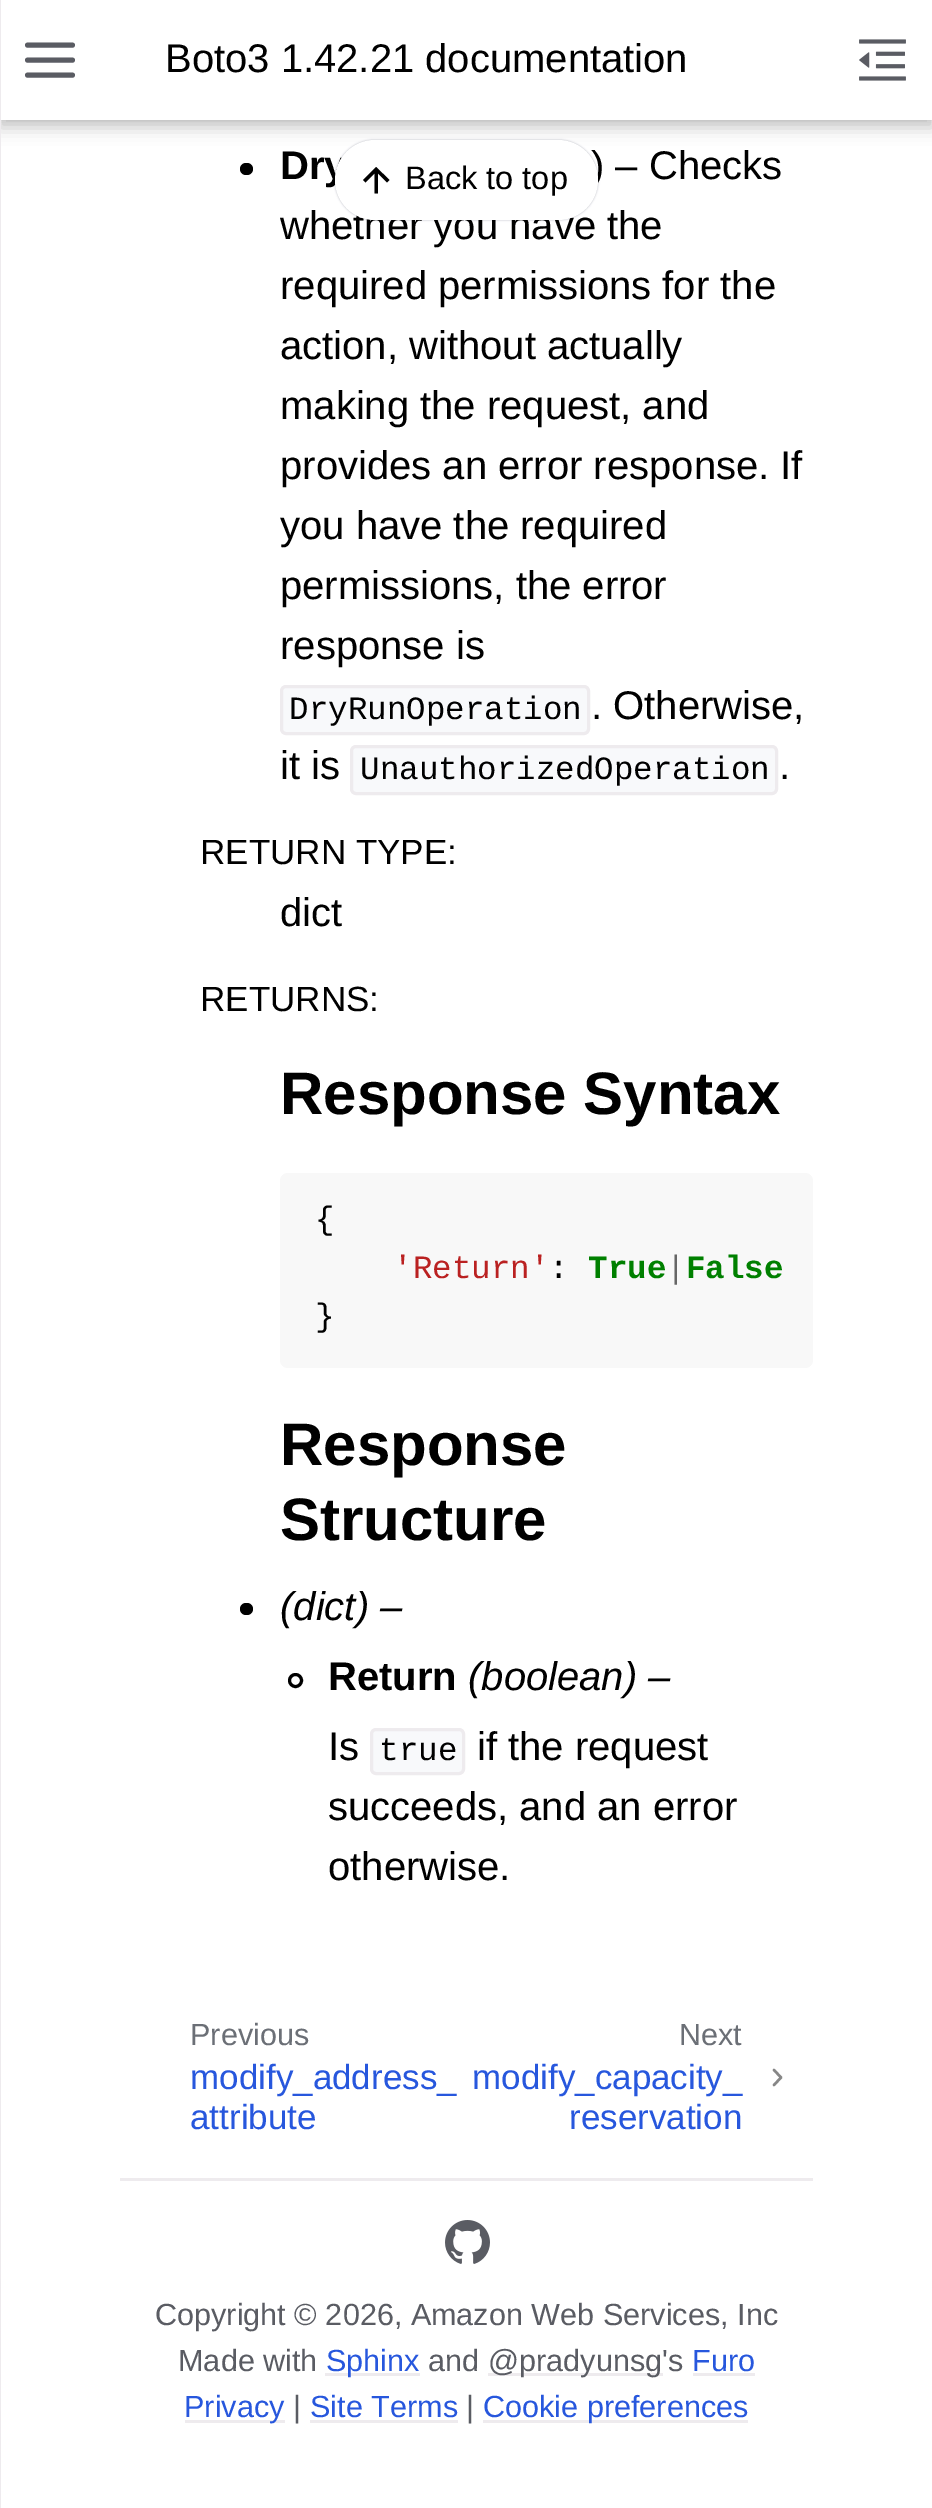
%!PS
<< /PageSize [932 2508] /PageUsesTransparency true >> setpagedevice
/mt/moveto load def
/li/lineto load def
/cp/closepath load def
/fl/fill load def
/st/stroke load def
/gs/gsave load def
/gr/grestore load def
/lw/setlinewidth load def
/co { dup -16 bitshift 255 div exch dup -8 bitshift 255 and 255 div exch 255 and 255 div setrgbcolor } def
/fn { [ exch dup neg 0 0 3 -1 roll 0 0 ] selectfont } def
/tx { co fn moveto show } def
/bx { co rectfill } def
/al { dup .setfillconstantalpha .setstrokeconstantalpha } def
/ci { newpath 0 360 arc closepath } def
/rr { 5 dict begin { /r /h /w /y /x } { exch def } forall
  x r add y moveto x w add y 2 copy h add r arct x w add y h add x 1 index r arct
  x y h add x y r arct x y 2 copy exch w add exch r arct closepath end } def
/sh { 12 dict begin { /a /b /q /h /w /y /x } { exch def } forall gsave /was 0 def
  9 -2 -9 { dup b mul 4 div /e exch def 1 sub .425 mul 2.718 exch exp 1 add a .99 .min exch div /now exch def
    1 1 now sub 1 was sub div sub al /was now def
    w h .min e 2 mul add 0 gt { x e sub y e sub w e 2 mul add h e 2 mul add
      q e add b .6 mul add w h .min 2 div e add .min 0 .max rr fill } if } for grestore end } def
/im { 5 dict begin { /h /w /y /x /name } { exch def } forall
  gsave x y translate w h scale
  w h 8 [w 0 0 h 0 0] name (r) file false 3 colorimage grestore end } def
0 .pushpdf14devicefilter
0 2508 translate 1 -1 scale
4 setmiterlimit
0 0 932 2508 16#FFFFFF bx
16#000000 co
0 8 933 120 0 8 .2 sh
0 0 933 120 0 4 .1 sh
0 0 1 2508 16#EEEBEE bx
1 0 931 120 16#FFFFFF bx
16#5A5C63 co
5 lw
1 setlinecap
1 setlinejoin
27.5 60 mt 72.5 60 li 27.5 45 mt 72.5 45 li 27.5 75 mt 72.5 75 li st
(media/1.raw) 859 39 47 42 im
16#000000 co
240 163 13 12 6 rr fl
16#F8F9FB co
281.5 686.5 307 47 4.5 rr gs fl gr
16#EEEBEE co
3 lw
0 setlinecap
0 setlinejoin
st
16#F8F9FB co
351.5 746.5 425 47 4.5 rr gs fl gr
16#EEEBEE co
st
16#F8F8F8 co
280 1173 533 195 8 rr fl
16#000000 co
240 1603 13 12 6 rr fl
295.5 1680.5 6 ci st
16#F8F9FB co
371.5 1729.5 92 44 4.5 rr gs fl gr
16#EEEBEE co
st
16#6B7280 co
335 140 263 80 40 1 .5 sh
16#878787 co
2.5 lw
1 setlinecap
1 setlinejoin
774 2085 mt 781 2077.5 li 774 2070 li st
120 2178 693 3 16#EEEBEE bx
(media/2.raw) 445 2220 45 44 im
325 2373 95 3 16#EEEBEE bx
488 2373 175 3 16#EEEBEE bx
693 2373 62 3 16#EEEBEE bx
185 2420 100 3 16#EEEBEE bx
310 2420 148 3 16#EEEBEE bx
483 2420 265 3 16#EEEBEE bx
(Boto3 1.42.21 documentation) 165 72 /LiberationSans-Regular 40 16#000000 tx
(Dry) 280 179 /LiberationSans-Bold 40 16#000000 tx
(\) – Checks) 591 179 /LiberationSans-Regular 40 16#000000 tx
(whether you have the) 280 239 /LiberationSans-Regular 40 16#000000 tx
(required permissions for the) 280 299 /LiberationSans-Regular 40 16#000000 tx
(action, without actually) 280 359 /LiberationSans-Regular 40 16#000000 tx
(making the request, and) 280 419 /LiberationSans-Regular 40 16#000000 tx
(provides an error response. If) 280 479 /LiberationSans-Regular 40 16#000000 tx
(you have the required) 280 539 /LiberationSans-Regular 40 16#000000 tx
(permissions, the error) 280 599 /LiberationSans-Regular 40 16#000000 tx
(response is) 280 659 /LiberationSans-Regular 40 16#000000 tx
(DryRunOperation) 289 719 /LiberationMono-Regular 32.5 16#000000 tx
(. Otherwise,) 591 719 /LiberationSans-Regular 40 16#000000 tx
(it is) 280 779 /LiberationSans-Regular 40 16#000000 tx
(UnauthorizedOperation) 360 779 /LiberationMono-Regular 32.5 16#000000 tx
(.) 779 779 /LiberationSans-Regular 40 16#000000 tx
(RETURN TYPE:) 200 864 /LiberationSans-Regular 35 16#000000 tx
(dict) 280 926 /LiberationSans-Regular 40 16#000000 tx
(RETURNS:) 200 1011 /LiberationSans-Regular 35 16#000000 tx
(Response Syntax) 280 1114 /LiberationSans-Bold 60 16#000000 tx
({) 315 1229 /LiberationMono-Regular 32.5 16#000000 tx
('Return') 393 1278 /LiberationMono-Regular 32.5 16#BA2121 tx
(True False) 588 1278 /LiberationMono-Bold 32.5 16#008000 tx
(:) 549 1278 /LiberationMono-Regular 32.5 16#000000 tx
(|) 666 1278 /LiberationMono-Regular 32.5 16#666666 tx
(}) 315 1326 /LiberationMono-Regular 32.5 16#000000 tx
(Response) 280 1465 /LiberationSans-Bold 60 16#000000 tx
(Structure) 280 1540 /LiberationSans-Bold 60 16#000000 tx
(\(dict\) –) 280 1620 /LiberationSans-Italic 40 16#000000 tx
(Return) 328 1690 /LiberationSans-Bold 40 16#000000 tx
(\(boolean\) –) 468 1690 /LiberationSans-Italic 40 16#000000 tx
(Is) 328 1760 /LiberationSans-Regular 40 16#000000 tx
(true) 379 1760 /LiberationMono-Regular 32.5 16#000000 tx
(if the request) 477 1760 /LiberationSans-Regular 40 16#000000 tx
(succeeds, and an error) 328 1820 /LiberationSans-Regular 40 16#000000 tx
(otherwise.) 328 1880 /LiberationSans-Regular 40 16#000000 tx
16#FFFFFF co
335 140 263 80 40 rr fl
16#000000 co
378 193.5 mt 374.5 193.5 li 374.5 173.5 li 365.5 182.5 li 363 180 li 376 167 li 389.5 180 li 387 182.5 li 378 173.5 li cp fl
(Back to top) 405 189 /LiberationSans-Regular 32.5 16#000000 tx
(Previous) 190 2045 /LiberationSans-Regular 30.6 16#6B6F76 tx
(modify_address_) 190 2089 /LiberationSans-Regular 35 16#2757DD tx
(attribute) 190 2129 /LiberationSans-Regular 35 16#2757DD tx
(Next) 679 2045 /LiberationSans-Regular 30.6 16#6B6F76 tx
(modify_capacity_) 472 2089 /LiberationSans-Regular 35 16#2757DD tx
(reservation) 569 2129 /LiberationSans-Regular 35 16#2757DD tx
(Copyright © 2026, Amazon Web Services, Inc) 155 2325 /LiberationSans-Regular 30.6 16#5A5C63 tx
(Made with) 178 2371 /LiberationSans-Regular 30.6 16#5A5C63 tx
(Sphinx) 326 2371 /LiberationSans-Regular 30.6 16#2757DD tx
(and) 428 2371 /LiberationSans-Regular 30.6 16#5A5C63 tx
(@pradyunsg's) 488 2371 /LiberationSans-Regular 30.6 16#5A5C63 tx
(Furo) 692 2371 /LiberationSans-Regular 30.6 16#2757DD tx
(Privacy) 184 2417 /LiberationSans-Regular 30.6 16#2757DD tx
(|) 293 2417 /LiberationSans-Regular 30.6 16#5A5C63 tx
(Site Terms) 310 2417 /LiberationSans-Regular 30.6 16#2757DD tx
(|) 466 2417 /LiberationSans-Regular 30.6 16#5A5C63 tx
(Cookie preferences) 483 2417 /LiberationSans-Regular 30.6 16#2757DD tx
.poppdf14devicefilter showpage
